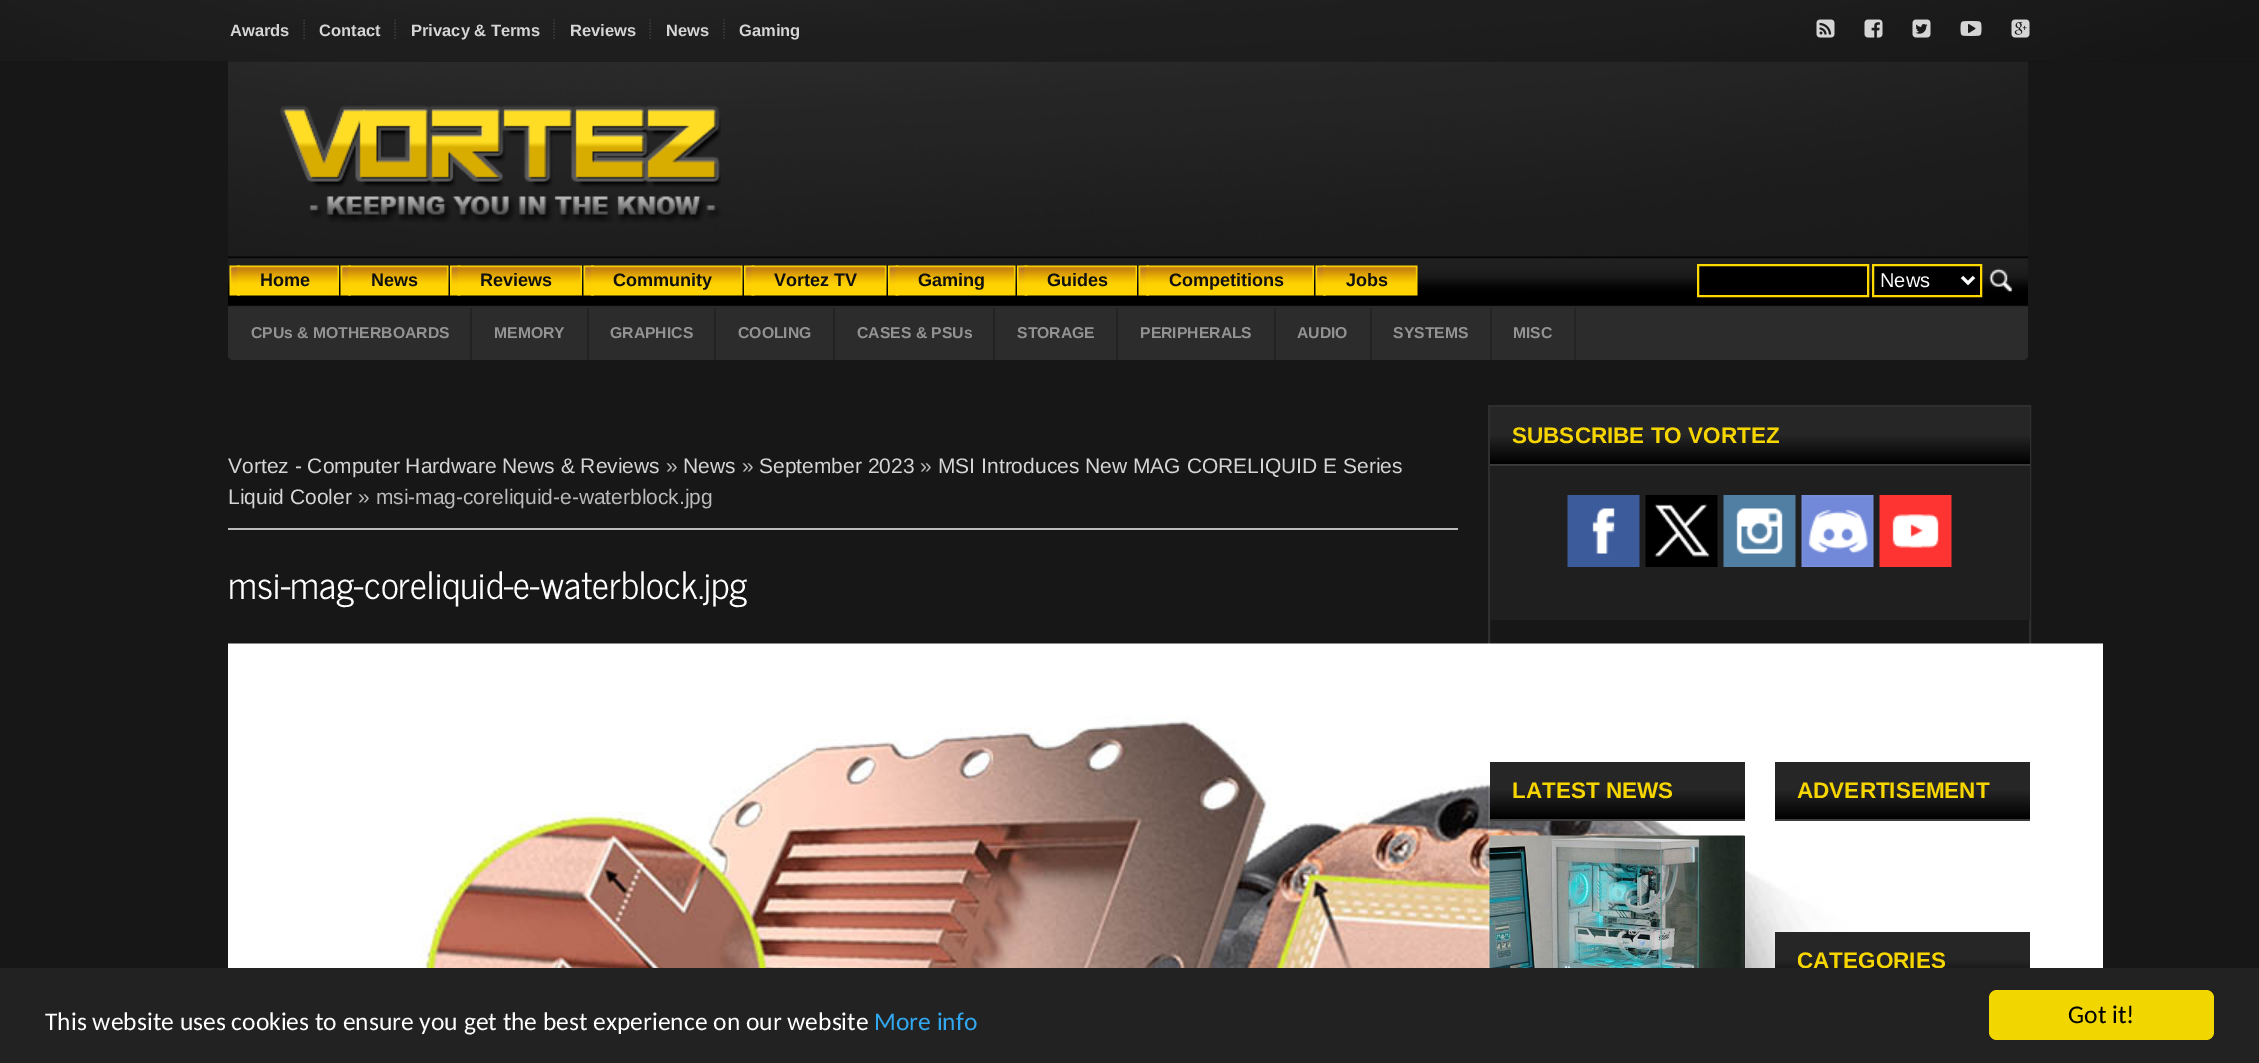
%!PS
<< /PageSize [2259 1063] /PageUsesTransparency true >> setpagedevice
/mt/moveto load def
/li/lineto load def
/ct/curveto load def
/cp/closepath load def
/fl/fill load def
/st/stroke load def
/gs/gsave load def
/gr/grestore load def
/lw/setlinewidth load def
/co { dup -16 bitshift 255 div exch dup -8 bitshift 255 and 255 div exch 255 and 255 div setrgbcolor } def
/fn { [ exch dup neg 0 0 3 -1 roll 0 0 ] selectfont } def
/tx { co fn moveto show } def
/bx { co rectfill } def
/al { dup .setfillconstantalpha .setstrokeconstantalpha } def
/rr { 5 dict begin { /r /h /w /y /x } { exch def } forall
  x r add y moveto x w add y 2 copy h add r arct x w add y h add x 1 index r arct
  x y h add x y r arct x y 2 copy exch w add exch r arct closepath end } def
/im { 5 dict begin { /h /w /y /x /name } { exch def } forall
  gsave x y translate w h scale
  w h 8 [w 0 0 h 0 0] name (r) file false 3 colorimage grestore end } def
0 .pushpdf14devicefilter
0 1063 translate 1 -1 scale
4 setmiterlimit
0 0 2259 1063 16#171717 bx
(media/1.raw) 0 0 2259 62 im
423 61 341 1 16#1A1A1A bx
(media/7.raw) 228 61 1800 196 im
0.2 al
0 0 2259 62 16#000000 bx
1 al
16#393939 co
1.5 lw
[1.5 1.5] 0 setdash
304 19.5 mt 304 39 li st
395 19.5 mt 395 39 li st
554 19.5 mt 554 39 li st
650 19.5 mt 650 39 li st
724 19.5 mt 724 39 li st
(media/2.raw) 1816 19 19 19 im
(media/3.raw) 1864 19 19 19 im
(media/4.raw) 1912 19 19 19 im
(media/5.raw) 1960 21 22 15 im
(media/6.raw) 2011 19 19 19 im
(media/8.raw) 280 105 441 118 im
0.09 al
16#FFFFFF co
228 293 mt 2028 293 li 2028 355 li 2028 358 2026 360 2023 360 ct 233 360 li 230 360 228 358 228 355 ct cp fl
1 al
(media/9.raw) 228 256 1800 51 im
(media/10.raw) 229 265 11 31 im
(media/11.raw) 237 265 102 31 im
(media/10.raw) 340 265 11 31 im
(media/12.raw) 348 265 101 31 im
(media/13.raw) 450 265 11 31 im
(media/14.raw) 457 265 125 31 im
(media/10.raw) 583 265 11 31 im
(media/15.raw) 591 265 152 31 im
(media/13.raw) 744 265 11 31 im
(media/16.raw) 751 265 136 31 im
(media/17.raw) 888 265 11 31 im
(media/18.raw) 895 265 121 31 im
(media/17.raw) 1017 265 11 31 im
(media/19.raw) 1024 265 113 31 im
(media/10.raw) 1138 265 11 31 im
(media/20.raw) 1146 265 168 31 im
(media/10.raw) 1315 265 11 31 im
(media/21.raw) 1323 265 95 31 im
1699 266 168 24 16#000000 bx
16#FFD800 co
2 lw
[] 0 setdash
1698 265 170 31 rectstroke
1874 266 106 24 16#000000 bx
16#FFD800 co
1873 265 108 31 rectstroke
16#FFFFFF co
3 lw
1962 277 mt 1968 283 li 1974 277 li st
(media/22.raw) 1989 268 24 25 im
0.2 al
470 308 2 52 16#000000 bx
587 308 2 52 16#000000 bx
714 308 2 52 16#000000 bx
833 308 2 52 16#000000 bx
993 308 2 52 16#000000 bx
1116 308 2 52 16#000000 bx
1274 308 2 52 16#000000 bx
1370 308 2 52 16#000000 bx
1 al
1490 308 2 52 16#242424 bx
1574 308 2 52 16#242424 bx
228 528 1230 2 16#BBBBBB bx
(media/23.raw) 228 643 1875 325 im
0.1 al
16#FFFFFF co
2 lw
1489 406 541 309 rectstroke
1 al
gs 1490 407 mt 2030 407 li 2030 464 li 1490 464 li cp clip newpath
<< /ShadingType 2 /ColorSpace /DeviceRGB /Coords [1760 407 1760 464] /Extend [true true] /Function << /FunctionType 3 /Domain [0 1] /Functions [<< /FunctionType 2 /Domain [0 1] /C0 [.149 .149 .149] /C1 [.149 .149 .149] /N 1 >> << /FunctionType 2 /Domain [0 1] /C0 [.149 .149 .149] /C1 [0 0 0] /N 1 >>] /Bounds [.48] /Encode [0 1 0 1] >> >> shfill gr
gs 1490 464 mt 2030 464 li 2030 465 li 1490 465 li cp clip newpath
<< /ShadingType 2 /ColorSpace /DeviceRGB /Coords [1760 464 1760 521] /Extend [true true] /Function << /FunctionType 3 /Domain [0 1] /Functions [<< /FunctionType 2 /Domain [0 1] /C0 [.149 .149 .149] /C1 [.149 .149 .149] /N 1 >> << /FunctionType 2 /Domain [0 1] /C0 [.149 .149 .149] /C1 [0 0 0] /N 1 >>] /Bounds [.48] /Encode [0 1 0 1] >> >> shfill gr
1490 465 540 155 16#1F1F1F bx
0.1 al
1490 464 540 2 16#FFFFFF bx
1 al
(media/24.raw) 1567 495 73 72 im
(media/25.raw) 1645 495 73 72 im
(media/26.raw) 1723 495 73 72 im
(media/27.raw) 1801 495 73 72 im
(media/28.raw) 1879 495 73 72 im
0.1 al
1489 762 256 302 rectstroke
1 al
gs 1490 762 mt 1745 762 li 1745 819 li 1490 819 li cp clip newpath
<< /ShadingType 2 /ColorSpace /DeviceRGB /Coords [1617 762 1617 819] /Extend [true true] /Function << /FunctionType 3 /Domain [0 1] /Functions [<< /FunctionType 2 /Domain [0 1] /C0 [.149 .149 .149] /C1 [.149 .149 .149] /N 1 >> << /FunctionType 2 /Domain [0 1] /C0 [.149 .149 .149] /C1 [0 0 0] /N 1 >>] /Bounds [.48] /Encode [0 1 0 1] >> >> shfill gr
1490 819 255 2 16#3C3C3C bx
1744 836 1 132 16#1F1F1F bx
(media/29.raw) 1489 835 256 133 im
gs 1775 762 mt 2030 762 li 2030 819 li 1775 819 li cp clip newpath
<< /ShadingType 2 /ColorSpace /DeviceRGB /Coords [1902 762 1902 819] /Extend [true true] /Function << /FunctionType 3 /Domain [0 1] /Functions [<< /FunctionType 2 /Domain [0 1] /C0 [.149 .149 .149] /C1 [.149 .149 .149] /N 1 >> << /FunctionType 2 /Domain [0 1] /C0 [.149 .149 .149] /C1 [0 0 0] /N 1 >>] /Bounds [.48] /Encode [0 1 0 1] >> >> shfill gr
1775 819 255 2 16#3C3C3C bx
0.1 al
16#FFFFFF co
1774 931 256 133 rectstroke
1 al
gs 1775 932 mt 2030 932 li 2030 968 li 1775 968 li cp clip newpath
<< /ShadingType 2 /ColorSpace /DeviceRGB /Coords [1902 932 1902 989] /Extend [true true] /Function << /FunctionType 3 /Domain [0 1] /Functions [<< /FunctionType 2 /Domain [0 1] /C0 [.149 .149 .149] /C1 [.149 .149 .149] /N 1 >> << /FunctionType 2 /Domain [0 1] /C0 [.149 .149 .149] /C1 [0 0 0] /N 1 >>] /Bounds [.48] /Encode [0 1 0 1] >> >> shfill gr
(Awards) 230 36 /LiberationSans-Bold 16.5 16#D5D5D5 tx
(Contact) 319 36 /LiberationSans-Bold 16.5 16#D5D5D5 tx
(Privacy & Terms) 411 36 /LiberationSans-Bold 16.5 16#D5D5D5 tx
(Reviews) 570 36 /LiberationSans-Bold 16.5 16#D5D5D5 tx
(News) 666 36 /LiberationSans-Bold 16.5 16#D5D5D5 tx
(Gaming) 739 36 /LiberationSans-Bold 16.5 16#D5D5D5 tx
(Home) 260 286 /LiberationSans-Bold 18 16#101010 tx
(News) 371 286 /LiberationSans-Bold 18 16#101010 tx
(Reviews) 480 286 /LiberationSans-Bold 18 16#101010 tx
(Community) 613 286 /LiberationSans-Bold 18 16#101010 tx
(Vortez TV) 774 286 /LiberationSans-Bold 18 16#101010 tx
(Gaming) 918 286 /LiberationSans-Bold 18 16#101010 tx
(Guides) 1047 286 /LiberationSans-Bold 18 16#101010 tx
(Competitions) 1169 286 /LiberationSans-Bold 18 16#101010 tx
(Jobs) 1346 286 /LiberationSans-Bold 18 16#101010 tx
(News) 1880 287 /LiberationSans-Regular 20 16#FFFFFF tx
(CPUs & MOTHERBOARDS) 251 338 /LiberationSans-Bold 15.75 16#939393 tx
(MEMORY) 494 338 /LiberationSans-Bold 15.75 16#939393 tx
(GRAPHICS) 610 338 /LiberationSans-Bold 15.75 16#939393 tx
(COOLING) 738 338 /LiberationSans-Bold 15.75 16#939393 tx
(CASES & PSUs) 857 338 /LiberationSans-Bold 15.75 16#939393 tx
(STORAGE) 1017 338 /LiberationSans-Bold 15.75 16#939393 tx
(PERIPHERALS) 1140 338 /LiberationSans-Bold 15.75 16#939393 tx
(AUDIO) 1297 338 /LiberationSans-Bold 15.75 16#939393 tx
(SYSTEMS) 1393 338 /LiberationSans-Bold 15.75 16#939393 tx
(MISC) 1513 338 /LiberationSans-Bold 15.75 16#939393 tx
(Vortez - Computer Hardware News & Reviews) 228 473 /LiberationSans-Regular 21 16#D5D5D5 tx
(») 666 473 /LiberationSans-Regular 21 16#BBBBBB tx
(News) 683 473 /LiberationSans-Regular 21 16#D5D5D5 tx
(») 742 473 /LiberationSans-Regular 21 16#BBBBBB tx
(September 2023) 759 473 /LiberationSans-Regular 21 16#D5D5D5 tx
(») 920 473 /LiberationSans-Regular 21 16#BBBBBB tx
(MSI Introduces New MAG CORELIQUID E Series) 938 473 /LiberationSans-Regular 21 16#D5D5D5 tx
(Liquid Cooler) 228 504 /LiberationSans-Regular 21 16#D5D5D5 tx
(» msi-mag-coreliquid-e-waterblock.jpg) 358 504 /LiberationSans-Regular 21 16#BBBBBB tx
(msi-mag-coreliquid-e-waterblock.jpg) 228 599 /NewsCycle-Regular 37.5 16#FFFFFF tx
(SUBSCRIBE TO VORTEZ) 1512 443 /LiberationSans-Bold 22.5 16#F7D600 tx
(LATEST NEWS) 1512 798 /LiberationSans-Bold 22.5 16#F7D600 tx
(ADVERTISEMENT) 1797 798 /LiberationSans-Bold 22.5 16#F7D600 tx
(CATEGORIES) 1797 968 /LiberationSans-Bold 22.5 16#F7D600 tx
0 968 2259 95 16#222222 bx
(This website uses cookies to ensure you get the best experience on our website) 45 1030 /Carlito-Regular 25.5 16#FFFFFF tx
(More info) 874 1030 /Carlito-Regular 25.5 16#31A8F0 tx
16#F1D600 co
1989 990 225 50 8 rr fl
(Got it!) 2068 1023 /Carlito-Regular 25.5 16#000000 tx
.poppdf14devicefilter showpage
